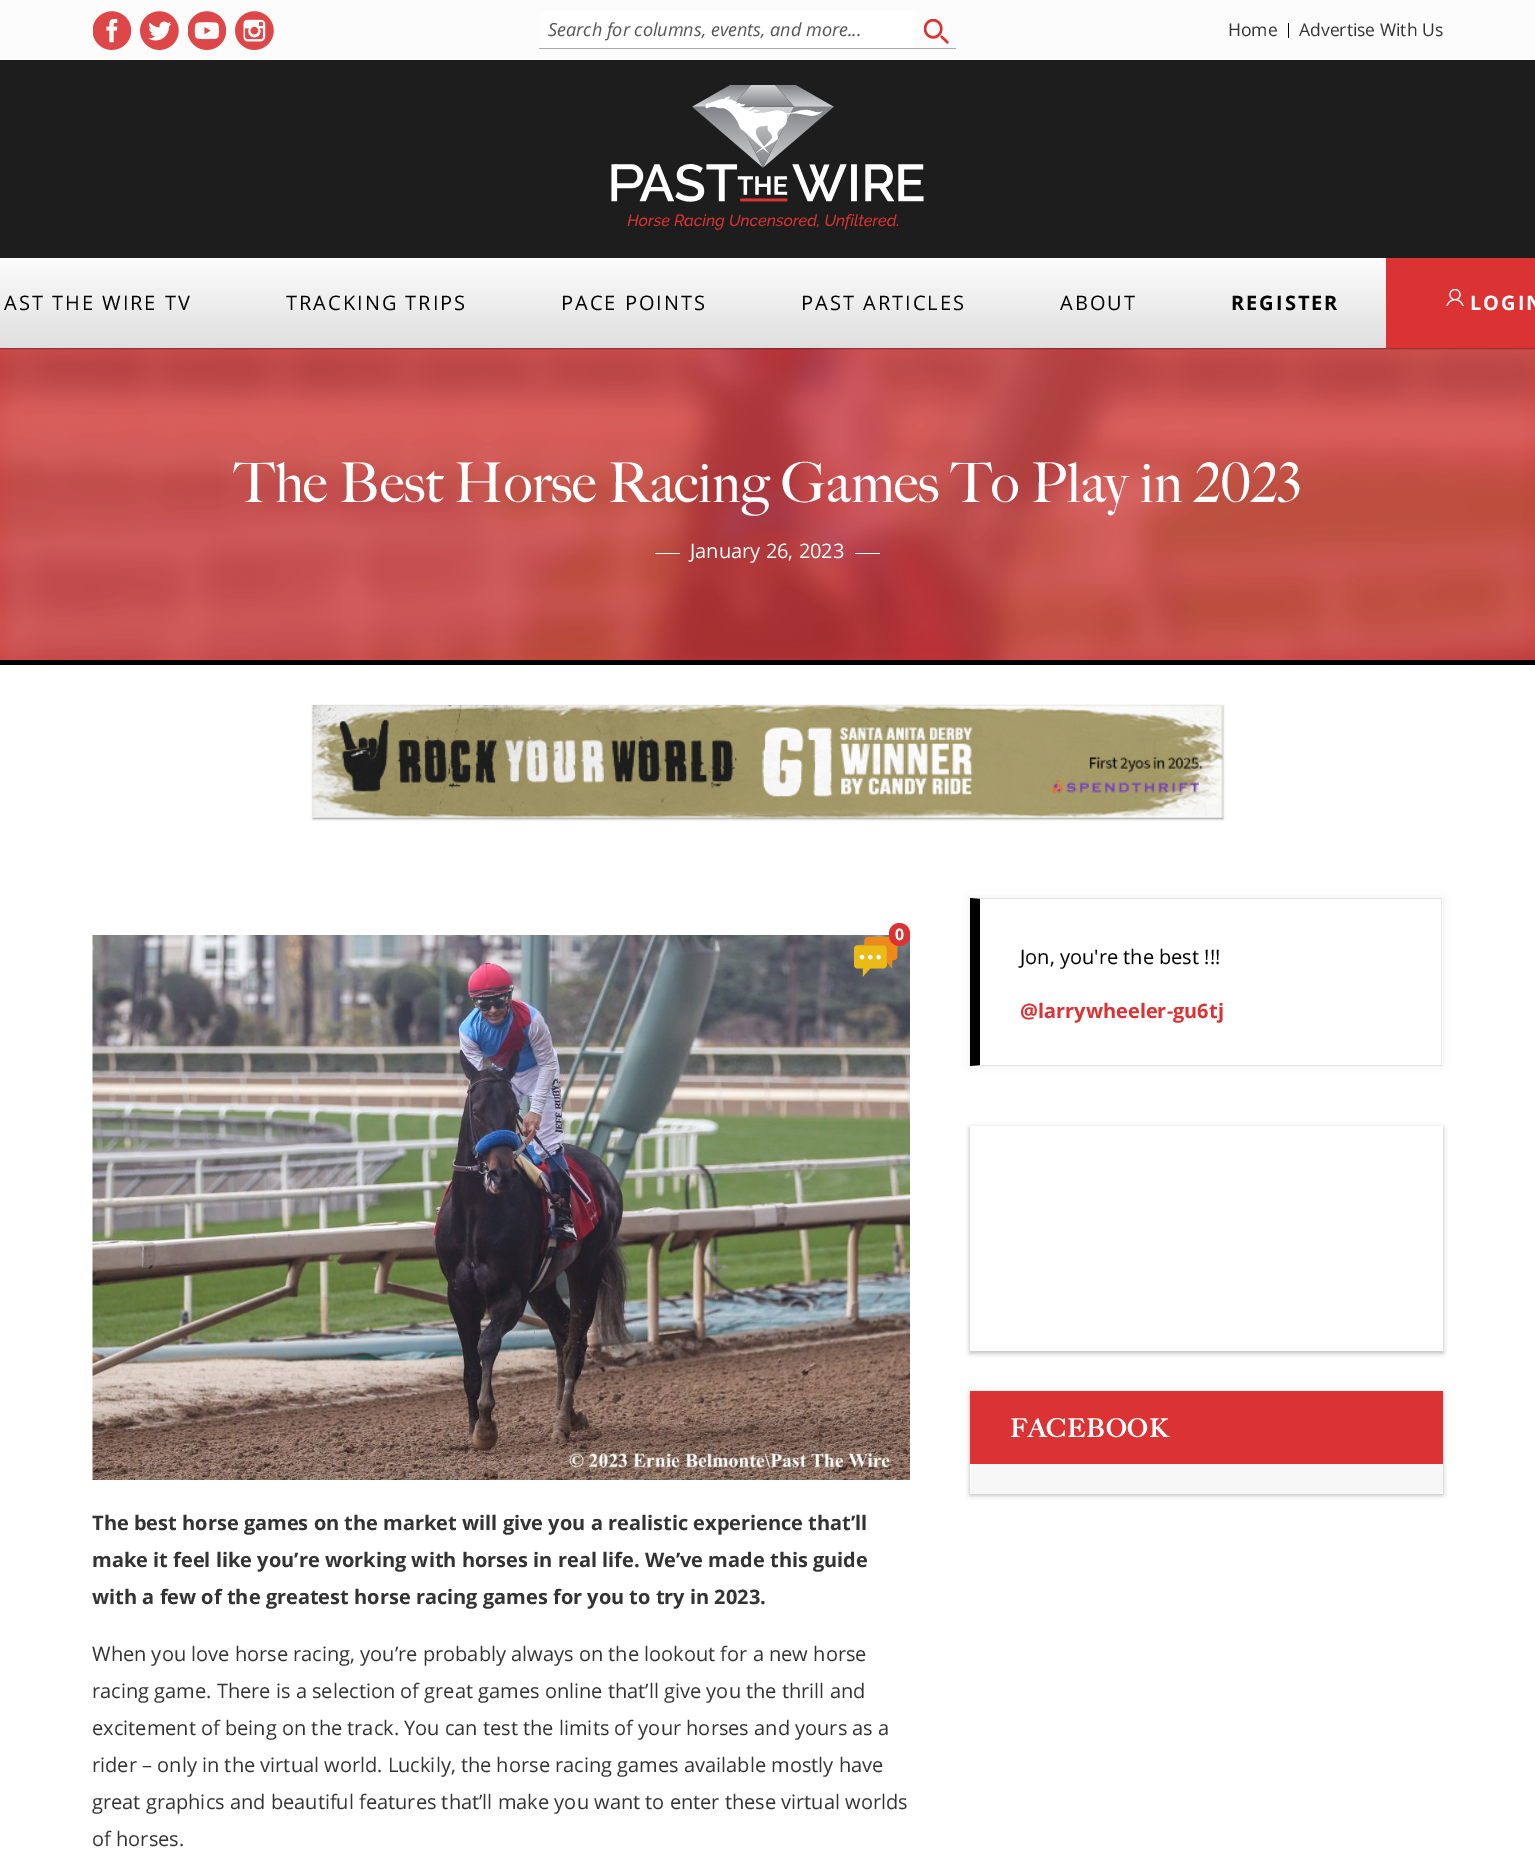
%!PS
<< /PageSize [1535 1866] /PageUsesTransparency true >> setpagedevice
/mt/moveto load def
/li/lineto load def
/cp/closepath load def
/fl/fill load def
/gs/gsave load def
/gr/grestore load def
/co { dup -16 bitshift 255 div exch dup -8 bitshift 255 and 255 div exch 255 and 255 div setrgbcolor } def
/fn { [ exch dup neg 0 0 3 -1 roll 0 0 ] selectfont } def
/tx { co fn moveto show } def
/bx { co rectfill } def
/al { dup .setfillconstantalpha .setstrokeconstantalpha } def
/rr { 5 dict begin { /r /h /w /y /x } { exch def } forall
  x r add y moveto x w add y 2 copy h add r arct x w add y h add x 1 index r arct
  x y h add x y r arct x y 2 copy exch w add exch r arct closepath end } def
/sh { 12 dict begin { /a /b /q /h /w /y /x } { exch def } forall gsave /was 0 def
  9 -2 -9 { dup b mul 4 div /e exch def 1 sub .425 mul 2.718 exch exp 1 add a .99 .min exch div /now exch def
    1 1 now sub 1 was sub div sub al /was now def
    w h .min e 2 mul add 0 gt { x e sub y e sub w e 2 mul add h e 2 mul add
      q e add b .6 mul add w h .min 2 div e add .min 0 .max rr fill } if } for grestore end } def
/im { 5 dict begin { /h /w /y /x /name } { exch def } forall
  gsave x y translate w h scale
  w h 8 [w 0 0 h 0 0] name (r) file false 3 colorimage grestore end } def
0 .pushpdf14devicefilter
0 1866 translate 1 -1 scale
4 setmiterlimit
0 0 1535 1866 16#FFFFFF bx
0 0 1535 60 16#FCFCFC bx
(media/1.raw) 93 11 38 39 im
(media/2.raw) 140 11 39 39 im
(media/3.raw) 188 11 38 39 im
(media/4.raw) 235 11 39 39 im
539 48 417 1 16#AAAAAA bx
541 11 373 37 16#FFFFFF bx
(media/5.raw) 924 19 25 25 im
1288 23 1 15 16#000000 bx
0 348 1535 312 16#DB3333 bx
(media/8.raw) 0 348 1535 312 im
16#000000 co
0 259 1535 90 0 .5 .32 sh
0 60 1535 198 16#1D1D1D bx
(media/6.raw) 611 85 313 145 im
gs 0 258 mt 1386 258 li 1386 348 li 0 348 li cp clip newpath
<< /ShadingType 2 /ColorSpace /DeviceRGB /Coords [768 257 768 348] /Extend [true true] /Function << /FunctionType 2 /Domain [0 1] /C0 [.988 .988 .988] /C1 [.875 .875 .875] /N 1 >> >> shfill gr
1386 258 149 90 16#DB3333 bx
(media/7.raw) 1446 289 18 17 im
0 660 1535 5 16#000000 bx
655 553 25 1 16#FFFFFF bx
855 553 25 1 16#FFFFFF bx
16#000000 co
313 706 910 113 0 1 .4 sh
(media/9.raw) 312 705 911 113 im
(media/11.raw) 92 935 818 545 im
(media/10.raw) 854 936 44 41 im
16#DB3333 co
889 923 21 23 10.5 rr fl
16#000000 co
970 898 473 168 0 4 .07 sh
970 898 473 168 16#FFFFFF bx
16#E6E6E6 co
970 898 mt 1442 898 li 1441 899 li 980 899 li cp fl
0.1 al
16#000000 co
1442 898 mt 1442 1066 li 1441 1065 li 1441 899 li cp fl
1442 1066 mt 970 1066 li 980 1065 li 1441 1065 li cp fl
1 al
970 1066 mt 970 898 li 980 899 li 980 1065 li cp fl
970 1128 473 225 0 2.5 .27 sh
970 1126 473 225 16#FFFFFF bx
16#000000 co
970 1393 473 102 0 2.5 .27 sh
970 1464 473 30 16#F7F7F7 bx
970 1391 473 73 16#DB3333 bx
(Search for columns, events, and more...) 548 36 /OpenSans-Italic 18.1 16#565656 tx
(Home) 1228 36 /OpenSans-Regular 17.5 16#333333 tx
(Advertise With Us) 1299 36 /OpenSans-Regular 17.5 16#333333 tx
/OpenSans-Regular 20 fn
16#000000 co
4 310 mt 2 0 (AST THE WIRE TV) ashow
286 310 mt 2 0 (TRACKING TRIPS) ashow
561 310 mt 2 0 (PACE POINTS) ashow
801 310 mt 2 0 (PAST ARTICLES) ashow
1060 310 mt 2 0 (ABOUT) ashow
/OpenSans-Bold 20 fn
1231 310 mt 2 0 (REGISTER) ashow
16#FFFFFF co
1470 310 mt 2 0 (LOGIN) ashow
(The Best Horse Racing Games To Play in 2023) 234 502 /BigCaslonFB-Regular 55 16#FFFFFF tx
(January 26, 2023) 690 558 /OpenSans-Regular 20 16#FFFFFF tx
(0) 895 940 /OpenSans-Bold 16 16#FFFFFF tx
(The best horse games on the market will give you a realistic experience that’ll) 92 1530 /OpenSans-Bold 20 16#333333 tx
(make it feel like you’re working with horses in real life. We’ve made this guide) 92 1567 /OpenSans-Bold 20 16#333333 tx
(with a few of the greatest horse racing games for you to try in 2023.) 92 1604 /OpenSans-Bold 20 16#333333 tx
(When you love horse racing, you’re probably always on the lookout for a new horse) 92 1661 /OpenSans-Regular 20 16#333333 tx
(racing game. There is a selection of great games online that’ll give you the thrill and) 92 1698 /OpenSans-Regular 20 16#333333 tx
(excitement of being on the track. You can test the limits of your horses and yours as a) 92 1735 /OpenSans-Regular 20 16#333333 tx
(rider – only in the virtual world. Luckily, the horse racing games available mostly have) 92 1772 /OpenSans-Regular 20 16#333333 tx
(great graphics and beautiful features that’ll make you want to enter these virtual worlds) 92 1809 /OpenSans-Regular 20 16#333333 tx
(of horses.) 92 1846 /OpenSans-Regular 20 16#333333 tx
(Jon, you're the best !!!) 1020 964 /OpenSans-Regular 20 16#000000 tx
(@larrywheeler-gu6tj) 1020 1018 /OpenSans-Bold 20 16#DB3333 tx
/BigCaslonFB-Bold 25 fn
16#FFFFFF co
1010 1437 mt 1.25 0 (FACEBOOK) ashow
.poppdf14devicefilter showpage
